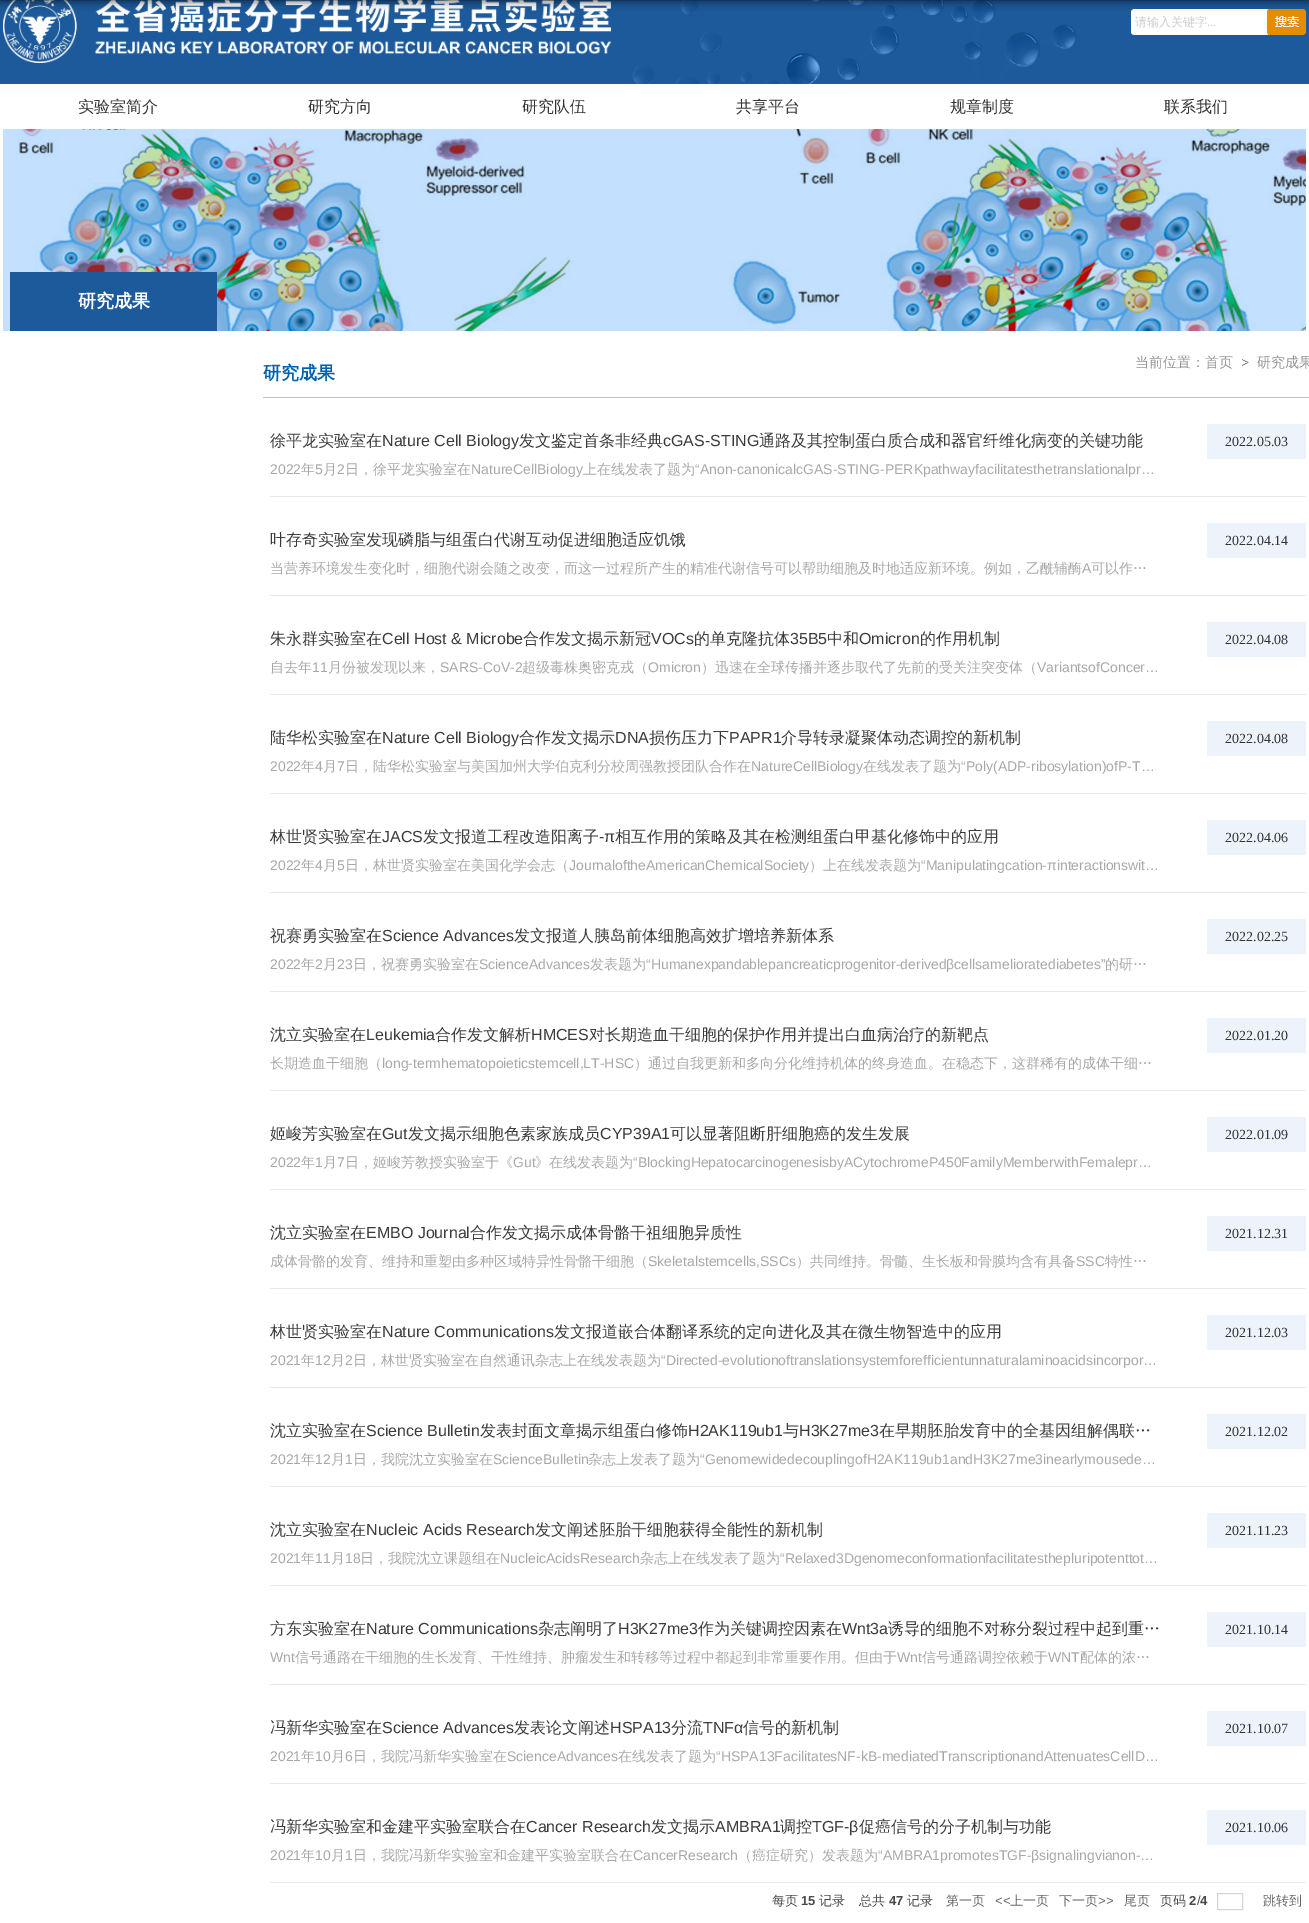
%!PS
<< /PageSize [1309 1923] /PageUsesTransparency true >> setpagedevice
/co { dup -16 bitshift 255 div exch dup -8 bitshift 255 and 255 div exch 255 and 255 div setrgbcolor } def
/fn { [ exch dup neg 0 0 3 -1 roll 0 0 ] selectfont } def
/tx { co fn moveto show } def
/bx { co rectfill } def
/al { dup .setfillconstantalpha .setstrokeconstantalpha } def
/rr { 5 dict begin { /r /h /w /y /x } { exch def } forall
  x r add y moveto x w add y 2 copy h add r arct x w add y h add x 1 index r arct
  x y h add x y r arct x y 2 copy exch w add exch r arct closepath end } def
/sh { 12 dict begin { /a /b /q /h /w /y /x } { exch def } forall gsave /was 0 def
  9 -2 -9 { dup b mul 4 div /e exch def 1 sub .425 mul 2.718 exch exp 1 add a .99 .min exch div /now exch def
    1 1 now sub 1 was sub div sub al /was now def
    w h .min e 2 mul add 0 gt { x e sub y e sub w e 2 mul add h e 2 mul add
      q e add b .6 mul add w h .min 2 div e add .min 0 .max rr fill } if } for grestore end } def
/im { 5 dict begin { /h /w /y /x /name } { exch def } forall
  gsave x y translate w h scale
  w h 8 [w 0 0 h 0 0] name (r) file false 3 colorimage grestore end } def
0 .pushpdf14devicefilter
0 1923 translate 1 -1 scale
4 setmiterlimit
0 0 1309 1923 16#FFFFFF bx
0 0 1309 84 16#1D5A9B bx
(media/1.raw) 632 0 445 84 im
(media/2.raw) 3 0 608 63 im
(media/3.raw) 1131 9 175 26 im
16#000000 co
0 -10 1309 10 0 5 .8 sh
(media/4.raw) 3 129 1303 202 im
10 272 207 59 16#1D5A9B bx
263 397 1046 1 16#C2C2C2 bx
(media/5.raw) 1242 359 7 7 im
270 496 1036 1 16#E8E8E8 bx
1207 424 99 35 16#EDF3FA bx
270 595 1036 1 16#E8E8E8 bx
1207 523 99 35 16#EDF3FA bx
270 694 1036 1 16#E8E8E8 bx
1207 622 99 35 16#EDF3FA bx
270 793 1036 1 16#E8E8E8 bx
1207 721 99 35 16#EDF3FA bx
270 892 1036 1 16#E8E8E8 bx
1207 820 99 35 16#EDF3FA bx
270 991 1036 1 16#E8E8E8 bx
1207 919 99 35 16#EDF3FA bx
270 1090 1036 1 16#E8E8E8 bx
1207 1018 99 35 16#EDF3FA bx
270 1189 1036 1 16#E8E8E8 bx
1207 1117 99 35 16#EDF3FA bx
270 1288 1036 1 16#E8E8E8 bx
1207 1216 99 35 16#EDF3FA bx
270 1387 1036 1 16#E8E8E8 bx
1207 1315 99 35 16#EDF3FA bx
270 1486 1036 1 16#E8E8E8 bx
1207 1414 99 35 16#EDF3FA bx
270 1585 1036 1 16#E8E8E8 bx
1207 1513 99 35 16#EDF3FA bx
270 1684 1036 1 16#E8E8E8 bx
1207 1612 99 35 16#EDF3FA bx
270 1783 1036 1 16#E8E8E8 bx
1207 1711 99 35 16#EDF3FA bx
270 1882 1036 1 16#E8E8E8 bx
1207 1810 99 35 16#EDF3FA bx
16#D5D5D5 co
1217.5 1893.5 25 16 rectstroke
(请输入关键字) 1135 26 /WenQuanYiZenHei-Medium 12 16#CCCCCC tx
(...) 1207 26 /LiberationSerif-Regular 12 16#CCCCCC tx
(实验室简介) 78 112 /WenQuanYiZenHei-Medium 16 16#333333 tx
(研究方向) 308 112 /WenQuanYiZenHei-Medium 16 16#333333 tx
(研究队伍) 522 112 /WenQuanYiZenHei-Medium 16 16#333333 tx
(共享平台) 736 112 /WenQuanYiZenHei-Medium 16 16#333333 tx
(规章制度) 950 112 /WenQuanYiZenHei-Medium 16 16#333333 tx
(联系我们) 1164 112 /WenQuanYiZenHei-Medium 16 16#333333 tx
(研究成果) 78 307 /WenQuanYiZenHei-Bold 18 16#FFFFFF tx
(研究成果) 263 379 /WenQuanYiZenHei-Bold 18 16#0062AD tx
(当前位置：首页) 1135 367 /WenQuanYiZenHei-Medium 14 16#949494 tx
(研究成果) 1257 367 /WenQuanYiZenHei-Medium 14 16#949494 tx
(徐平龙实验室在) 270 446 /WenQuanYiZenHei-Medium 16 16#3B3B3B tx
(Nature Cell Biology) 382 446 /LiberationSans-Regular 16 16#3B3B3B tx
(发文鉴定首条非经典) 519 446 /WenQuanYiZenHei-Medium 16 16#3B3B3B tx
(cGAS-STING) 663 446 /LiberationSans-Regular 16 16#3B3B3B tx
(通路及其控制蛋白质合成和器官纤维化病变的关键功能) 759 446 /WenQuanYiZenHei-Medium 16 16#3B3B3B tx
(2022.05.03) 1225 446 /LiberationSerif-Regular 14 16#333333 tx
(2022) 270 474 /LiberationSans-Regular 14 16#A8A8A8 tx
(年) 301 474 /WenQuanYiZenHei-Medium 14 16#A8A8A8 tx
(5) 315 474 /LiberationSans-Regular 14 16#A8A8A8 tx
(月) 323 474 /WenQuanYiZenHei-Medium 14 16#A8A8A8 tx
(2) 337 474 /LiberationSans-Regular 14 16#A8A8A8 tx
(日，徐平龙实验室在) 345 474 /WenQuanYiZenHei-Medium 14 16#A8A8A8 tx
(NatureCellBiology) 471 474 /LiberationSans-Regular 14 16#A8A8A8 tx
(上在线发表了题为) 583 474 /WenQuanYiZenHei-Medium 14 16#A8A8A8 tx
(“Anon-canonicalcGAS-STING-PERKpathwayfacilitatesthetranslationalpr…) 695 474 /LiberationSans-Regular 14 16#A8A8A8 tx
(叶存奇实验室发现磷脂与组蛋白代谢互动促进细胞适应饥饿) 270 545 /WenQuanYiZenHei-Medium 16 16#3B3B3B tx
(2022.04.14) 1225 545 /LiberationSerif-Regular 14 16#333333 tx
(当营养环境发生变化时，细胞代谢会随之改变，而这一过程所产生的精准代谢信号可以帮助细胞及时地适应新环境。例如，乙酰辅酶) 270 573 /WenQuanYiZenHei-Medium 14 16#A8A8A8 tx
(A) 1082 573 /LiberationSans-Regular 14 16#A8A8A8 tx
(可以作…) 1091 573 /WenQuanYiZenHei-Medium 14 16#A8A8A8 tx
(朱永群实验室在) 270 644 /WenQuanYiZenHei-Medium 16 16#3B3B3B tx
(Cell Host & Microbe) 382 644 /LiberationSans-Regular 16 16#3B3B3B tx
(合作发文揭示新冠) 523 644 /WenQuanYiZenHei-Medium 16 16#3B3B3B tx
(VOCs) 651 644 /LiberationSans-Regular 16 16#3B3B3B tx
(的单克隆抗体) 694 644 /WenQuanYiZenHei-Medium 16 16#3B3B3B tx
(35B5) 790 644 /LiberationSans-Regular 16 16#3B3B3B tx
(中和) 827 644 /WenQuanYiZenHei-Medium 16 16#3B3B3B tx
(Omicron) 859 644 /LiberationSans-Regular 16 16#3B3B3B tx
(的作用机制) 920 644 /WenQuanYiZenHei-Medium 16 16#3B3B3B tx
(2022.04.08) 1225 644 /LiberationSerif-Regular 14 16#333333 tx
(自去年) 270 672 /WenQuanYiZenHei-Medium 14 16#A8A8A8 tx
(11) 312 672 /LiberationSans-Regular 14 16#A8A8A8 tx
(月份被发现以来，) 328 672 /WenQuanYiZenHei-Medium 14 16#A8A8A8 tx
(SARS-CoV-2) 440 672 /LiberationSans-Regular 14 16#A8A8A8 tx
(超级毒株奥密克戎（) 522 672 /WenQuanYiZenHei-Medium 14 16#A8A8A8 tx
(Omicron) 648 672 /LiberationSans-Regular 14 16#A8A8A8 tx
(）迅速在全球传播并逐步取代了先前的受关注突变体（) 701 672 /WenQuanYiZenHei-Medium 14 16#A8A8A8 tx
(VariantsofConcer…) 1037 672 /LiberationSans-Regular 14 16#A8A8A8 tx
(陆华松实验室在) 270 743 /WenQuanYiZenHei-Medium 16 16#3B3B3B tx
(Nature Cell Biology) 382 743 /LiberationSans-Regular 16 16#3B3B3B tx
(合作发文揭示) 519 743 /WenQuanYiZenHei-Medium 16 16#3B3B3B tx
(DNA) 615 743 /LiberationSans-Regular 16 16#3B3B3B tx
(损伤压力下) 649 743 /WenQuanYiZenHei-Medium 16 16#3B3B3B tx
(PAPR1) 729 743 /LiberationSans-Regular 16 16#3B3B3B tx
(介导转录凝聚体动态调控的新机制) 781 743 /WenQuanYiZenHei-Medium 16 16#3B3B3B tx
(2022.04.08) 1225 743 /LiberationSerif-Regular 14 16#333333 tx
(2022) 270 771 /LiberationSans-Regular 14 16#A8A8A8 tx
(年) 301 771 /WenQuanYiZenHei-Medium 14 16#A8A8A8 tx
(4) 315 771 /LiberationSans-Regular 14 16#A8A8A8 tx
(月) 323 771 /WenQuanYiZenHei-Medium 14 16#A8A8A8 tx
(7) 337 771 /LiberationSans-Regular 14 16#A8A8A8 tx
(日，陆华松实验室与美国加州大学伯克利分校周强教授团队合作在) 345 771 /WenQuanYiZenHei-Medium 14 16#A8A8A8 tx
(NatureCellBiology) 751 771 /LiberationSans-Regular 14 16#A8A8A8 tx
(在线发表了题为) 863 771 /WenQuanYiZenHei-Medium 14 16#A8A8A8 tx
(“Poly\(ADP-ribosylation\)ofP-T…) 961 771 /LiberationSans-Regular 14 16#A8A8A8 tx
(林世贤实验室在) 270 842 /WenQuanYiZenHei-Medium 16 16#3B3B3B tx
(JACS) 382 842 /LiberationSans-Regular 16 16#3B3B3B tx
(发文报道工程改造阳离子) 423 842 /WenQuanYiZenHei-Medium 16 16#3B3B3B tx
(-π) 599 842 /LiberationSans-Regular 16 16#3B3B3B tx
(相互作用的策略及其在检测组蛋白甲基化修饰中的应用) 615 842 /WenQuanYiZenHei-Medium 16 16#3B3B3B tx
(2022.04.06) 1225 842 /LiberationSerif-Regular 14 16#333333 tx
(2022) 270 870 /LiberationSans-Regular 14 16#A8A8A8 tx
(年) 301 870 /WenQuanYiZenHei-Medium 14 16#A8A8A8 tx
(4) 315 870 /LiberationSans-Regular 14 16#A8A8A8 tx
(月) 323 870 /WenQuanYiZenHei-Medium 14 16#A8A8A8 tx
(5) 337 870 /LiberationSans-Regular 14 16#A8A8A8 tx
(日，林世贤实验室在美国化学会志（) 345 870 /WenQuanYiZenHei-Medium 14 16#A8A8A8 tx
(JournaloftheAmericanChemicalSociety) 569 870 /LiberationSans-Regular 14 16#A8A8A8 tx
(）上在线发表题为) 809 870 /WenQuanYiZenHei-Medium 14 16#A8A8A8 tx
(“Manipulatingcation-πinteractionswit…) 921 870 /LiberationSans-Regular 14 16#A8A8A8 tx
(祝赛勇实验室在) 270 941 /WenQuanYiZenHei-Medium 16 16#3B3B3B tx
(Science Advances) 382 941 /LiberationSans-Regular 16 16#3B3B3B tx
(发文报道人胰岛前体细胞高效扩增培养新体系) 514 941 /WenQuanYiZenHei-Medium 16 16#3B3B3B tx
(2022.02.25) 1225 941 /LiberationSerif-Regular 14 16#333333 tx
(2022) 270 969 /LiberationSans-Regular 14 16#A8A8A8 tx
(年) 301 969 /WenQuanYiZenHei-Medium 14 16#A8A8A8 tx
(2) 315 969 /LiberationSans-Regular 14 16#A8A8A8 tx
(月) 323 969 /WenQuanYiZenHei-Medium 14 16#A8A8A8 tx
(23) 337 969 /LiberationSans-Regular 14 16#A8A8A8 tx
(日，祝赛勇实验室在) 353 969 /WenQuanYiZenHei-Medium 14 16#A8A8A8 tx
(ScienceAdvances) 479 969 /LiberationSans-Regular 14 16#A8A8A8 tx
(发表题为) 590 969 /WenQuanYiZenHei-Medium 14 16#A8A8A8 tx
(“Humanexpandablepancreaticprogenitor-derivedβcellsamelioratediabetes”) 646 969 /LiberationSans-Regular 14 16#A8A8A8 tx
(的研…) 1105 969 /WenQuanYiZenHei-Medium 14 16#A8A8A8 tx
(沈立实验室在) 270 1040 /WenQuanYiZenHei-Medium 16 16#3B3B3B tx
(Leukemia) 366 1040 /LiberationSans-Regular 16 16#3B3B3B tx
(合作发文解析) 435 1040 /WenQuanYiZenHei-Medium 16 16#3B3B3B tx
(HMCES) 531 1040 /LiberationSans-Regular 16 16#3B3B3B tx
(对长期造血干细胞的保护作用并提出白血病治疗的新靶点) 589 1040 /WenQuanYiZenHei-Medium 16 16#3B3B3B tx
(2022.01.20) 1225 1040 /LiberationSerif-Regular 14 16#333333 tx
(长期造血干细胞（) 270 1068 /WenQuanYiZenHei-Medium 14 16#A8A8A8 tx
(long-termhematopoieticstemcell,LT-HSC) 382 1068 /LiberationSans-Regular 14 16#A8A8A8 tx
(）通过自我更新和多向分化维持机体的终身造血。在稳态下，这群稀有的成体干细…) 634 1068 /WenQuanYiZenHei-Medium 14 16#A8A8A8 tx
(姬峻芳实验室在) 270 1139 /WenQuanYiZenHei-Medium 16 16#3B3B3B tx
(Gut) 382 1139 /LiberationSans-Regular 16 16#3B3B3B tx
(发文揭示细胞色素家族成员) 408 1139 /WenQuanYiZenHei-Medium 16 16#3B3B3B tx
(CYP39A1) 600 1139 /LiberationSans-Regular 16 16#3B3B3B tx
(可以显著阻断肝细胞癌的发生发展) 670 1139 /WenQuanYiZenHei-Medium 16 16#3B3B3B tx
(2022.01.09) 1225 1139 /LiberationSerif-Regular 14 16#333333 tx
(2022) 270 1167 /LiberationSans-Regular 14 16#A8A8A8 tx
(年) 301 1167 /WenQuanYiZenHei-Medium 14 16#A8A8A8 tx
(1) 315 1167 /LiberationSans-Regular 14 16#A8A8A8 tx
(月) 323 1167 /WenQuanYiZenHei-Medium 14 16#A8A8A8 tx
(7) 337 1167 /LiberationSans-Regular 14 16#A8A8A8 tx
(日，姬峻芳教授实验室于《) 345 1167 /WenQuanYiZenHei-Medium 14 16#A8A8A8 tx
(Gut) 513 1167 /LiberationSans-Regular 14 16#A8A8A8 tx
(》在线发表题为) 535 1167 /WenQuanYiZenHei-Medium 14 16#A8A8A8 tx
(“BlockingHepatocarcinogenesisbyACytochromeP450FamilyMemberwithFemalepr…) 633 1167 /LiberationSans-Regular 14 16#A8A8A8 tx
(沈立实验室在) 270 1238 /WenQuanYiZenHei-Medium 16 16#3B3B3B tx
(EMBO Journal) 366 1238 /LiberationSans-Regular 16 16#3B3B3B tx
(合作发文揭示成体骨骼干祖细胞异质性) 470 1238 /WenQuanYiZenHei-Medium 16 16#3B3B3B tx
(2021.12.31) 1225 1238 /LiberationSerif-Regular 14 16#333333 tx
(成体骨骼的发育、维持和重塑由多种区域特异性骨骼干细胞（) 270 1266 /WenQuanYiZenHei-Medium 14 16#A8A8A8 tx
(Skeletalstemcells,SSCs) 648 1266 /LiberationSans-Regular 14 16#A8A8A8 tx
(）共同维持。骨髓、生长板和骨膜均含有具备) 796 1266 /WenQuanYiZenHei-Medium 14 16#A8A8A8 tx
(SSC) 1076 1266 /LiberationSans-Regular 14 16#A8A8A8 tx
(特性…) 1105 1266 /WenQuanYiZenHei-Medium 14 16#A8A8A8 tx
(林世贤实验室在) 270 1337 /WenQuanYiZenHei-Medium 16 16#3B3B3B tx
(Nature Communications) 382 1337 /LiberationSans-Regular 16 16#3B3B3B tx
(发文报道嵌合体翻译系统的定向进化及其在微生物智造中的应用) 554 1337 /WenQuanYiZenHei-Medium 16 16#3B3B3B tx
(2021.12.03) 1225 1337 /LiberationSerif-Regular 14 16#333333 tx
(2021) 270 1365 /LiberationSans-Regular 14 16#A8A8A8 tx
(年) 301 1365 /WenQuanYiZenHei-Medium 14 16#A8A8A8 tx
(12) 315 1365 /LiberationSans-Regular 14 16#A8A8A8 tx
(月) 331 1365 /WenQuanYiZenHei-Medium 14 16#A8A8A8 tx
(2) 345 1365 /LiberationSans-Regular 14 16#A8A8A8 tx
(日，林世贤实验室在自然通讯杂志上在线发表题为) 353 1365 /WenQuanYiZenHei-Medium 14 16#A8A8A8 tx
(“Directed-evolutionoftranslationsystemforefficientunnaturalaminoacidsincorpor…) 661 1365 /LiberationSans-Regular 14 16#A8A8A8 tx
(沈立实验室在) 270 1436 /WenQuanYiZenHei-Medium 16 16#3B3B3B tx
(Science Bulletin) 366 1436 /LiberationSans-Regular 16 16#3B3B3B tx
(发表封面文章揭示组蛋白修饰) 480 1436 /WenQuanYiZenHei-Medium 16 16#3B3B3B tx
(H2AK119ub1) 688 1436 /LiberationSans-Regular 16 16#3B3B3B tx
(与) 783 1436 /WenQuanYiZenHei-Medium 16 16#3B3B3B tx
(H3K27me3) 799 1436 /LiberationSans-Regular 16 16#3B3B3B tx
(在早期胚胎发育中的全基因组解偶联…) 879 1436 /WenQuanYiZenHei-Medium 16 16#3B3B3B tx
(2021.12.02) 1225 1436 /LiberationSerif-Regular 14 16#333333 tx
(2021) 270 1464 /LiberationSans-Regular 14 16#A8A8A8 tx
(年) 301 1464 /WenQuanYiZenHei-Medium 14 16#A8A8A8 tx
(12) 315 1464 /LiberationSans-Regular 14 16#A8A8A8 tx
(月) 331 1464 /WenQuanYiZenHei-Medium 14 16#A8A8A8 tx
(1) 345 1464 /LiberationSans-Regular 14 16#A8A8A8 tx
(日，我院沈立实验室在) 353 1464 /WenQuanYiZenHei-Medium 14 16#A8A8A8 tx
(ScienceBulletin) 493 1464 /LiberationSans-Regular 14 16#A8A8A8 tx
(杂志上发表了题为) 588 1464 /WenQuanYiZenHei-Medium 14 16#A8A8A8 tx
(“GenomewidedecouplingofH2AK119ub1andH3K27me3inearlymousede…) 700 1464 /LiberationSans-Regular 14 16#A8A8A8 tx
(沈立实验室在) 270 1535 /WenQuanYiZenHei-Medium 16 16#3B3B3B tx
(Nucleic Acids Research) 366 1535 /LiberationSans-Regular 16 16#3B3B3B tx
(发文阐述胚胎干细胞获得全能性的新机制) 535 1535 /WenQuanYiZenHei-Medium 16 16#3B3B3B tx
(2021.11.23) 1225 1535 /LiberationSerif-Regular 14 16#333333 tx
(2021) 270 1563 /LiberationSans-Regular 14 16#A8A8A8 tx
(年) 301 1563 /WenQuanYiZenHei-Medium 14 16#A8A8A8 tx
(11) 315 1563 /LiberationSans-Regular 14 16#A8A8A8 tx
(月) 331 1563 /WenQuanYiZenHei-Medium 14 16#A8A8A8 tx
(18) 345 1563 /LiberationSans-Regular 14 16#A8A8A8 tx
(日，我院沈立课题组在) 360 1563 /WenQuanYiZenHei-Medium 14 16#A8A8A8 tx
(NucleicAcidsResearch) 500 1563 /LiberationSans-Regular 14 16#A8A8A8 tx
(杂志上在线发表了题为) 640 1563 /WenQuanYiZenHei-Medium 14 16#A8A8A8 tx
(“Relaxed3Dgenomeconformationfacilitatesthepluripotenttot…) 780 1563 /LiberationSans-Regular 14 16#A8A8A8 tx
(方东实验室在) 270 1634 /WenQuanYiZenHei-Medium 16 16#3B3B3B tx
(Nature Communications) 366 1634 /LiberationSans-Regular 16 16#3B3B3B tx
(杂志阐明了) 538 1634 /WenQuanYiZenHei-Medium 16 16#3B3B3B tx
(H3K27me3) 618 1634 /LiberationSans-Regular 16 16#3B3B3B tx
(作为关键调控因素在) 698 1634 /WenQuanYiZenHei-Medium 16 16#3B3B3B tx
(Wnt3a) 842 1634 /LiberationSans-Regular 16 16#3B3B3B tx
(诱导的细胞不对称分裂过程中起到重…) 888 1634 /WenQuanYiZenHei-Medium 16 16#3B3B3B tx
(2021.10.14) 1225 1634 /LiberationSerif-Regular 14 16#333333 tx
(Wnt) 270 1662 /LiberationSans-Regular 14 16#A8A8A8 tx
(信号通路在干细胞的生长发育、干性维持、肿瘤发生和转移等过程中都起到非常重要作用。但由于) 295 1662 /WenQuanYiZenHei-Medium 14 16#A8A8A8 tx
(Wnt) 897 1662 /LiberationSans-Regular 14 16#A8A8A8 tx
(信号通路调控依赖于) 922 1662 /WenQuanYiZenHei-Medium 14 16#A8A8A8 tx
(WNT) 1048 1662 /LiberationSans-Regular 14 16#A8A8A8 tx
(配体的浓…) 1080 1662 /WenQuanYiZenHei-Medium 14 16#A8A8A8 tx
(冯新华实验室在) 270 1733 /WenQuanYiZenHei-Medium 16 16#3B3B3B tx
(Science Advances) 382 1733 /LiberationSans-Regular 16 16#3B3B3B tx
(发表论文阐述) 514 1733 /WenQuanYiZenHei-Medium 16 16#3B3B3B tx
(HSPA13) 610 1733 /LiberationSans-Regular 16 16#3B3B3B tx
(分流) 671 1733 /WenQuanYiZenHei-Medium 16 16#3B3B3B tx
(TNFα) 703 1733 /LiberationSans-Regular 16 16#3B3B3B tx
(信号的新机制) 743 1733 /WenQuanYiZenHei-Medium 16 16#3B3B3B tx
(2021.10.07) 1225 1733 /LiberationSerif-Regular 14 16#333333 tx
(2021) 270 1761 /LiberationSans-Regular 14 16#A8A8A8 tx
(年) 301 1761 /WenQuanYiZenHei-Medium 14 16#A8A8A8 tx
(10) 315 1761 /LiberationSans-Regular 14 16#A8A8A8 tx
(月) 331 1761 /WenQuanYiZenHei-Medium 14 16#A8A8A8 tx
(6) 345 1761 /LiberationSans-Regular 14 16#A8A8A8 tx
(日，我院冯新华实验室在) 353 1761 /WenQuanYiZenHei-Medium 14 16#A8A8A8 tx
(ScienceAdvances) 507 1761 /LiberationSans-Regular 14 16#A8A8A8 tx
(在线发表了题为) 618 1761 /WenQuanYiZenHei-Medium 14 16#A8A8A8 tx
(“HSPA13FacilitatesNF-kB-mediatedTranscriptionandAttenuatesCellD…) 716 1761 /LiberationSans-Regular 14 16#A8A8A8 tx
(冯新华实验室和金建平实验室联合在) 270 1832 /WenQuanYiZenHei-Medium 16 16#3B3B3B tx
(Cancer Research) 526 1832 /LiberationSans-Regular 16 16#3B3B3B tx
(发文揭示) 651 1832 /WenQuanYiZenHei-Medium 16 16#3B3B3B tx
(AMBRA1) 715 1832 /LiberationSans-Regular 16 16#3B3B3B tx
(调控) 780 1832 /WenQuanYiZenHei-Medium 16 16#3B3B3B tx
(TGF-β) 812 1832 /LiberationSans-Regular 16 16#3B3B3B tx
(促癌信号的分子机制与功能) 859 1832 /WenQuanYiZenHei-Medium 16 16#3B3B3B tx
(2021.10.06) 1225 1832 /LiberationSerif-Regular 14 16#333333 tx
(2021) 270 1860 /LiberationSans-Regular 14 16#A8A8A8 tx
(年) 301 1860 /WenQuanYiZenHei-Medium 14 16#A8A8A8 tx
(10) 315 1860 /LiberationSans-Regular 14 16#A8A8A8 tx
(月) 331 1860 /WenQuanYiZenHei-Medium 14 16#A8A8A8 tx
(1) 345 1860 /LiberationSans-Regular 14 16#A8A8A8 tx
(日，我院冯新华实验室和金建平实验室联合在) 353 1860 /WenQuanYiZenHei-Medium 14 16#A8A8A8 tx
(CancerResearch) 633 1860 /LiberationSans-Regular 14 16#A8A8A8 tx
(（癌症研究）发表题为) 738 1860 /WenQuanYiZenHei-Medium 14 16#A8A8A8 tx
(“AMBRA1promotesTGF-βsignalingvianon-…) 878 1860 /LiberationSans-Regular 14 16#A8A8A8 tx
(每页) 772 1905 /WenQuanYiZenHei-Medium 13 16#494949 tx
(15) 801 1905 /LiberationSans-Bold 13 16#494949 tx
(记录) 819 1905 /WenQuanYiZenHei-Medium 13 16#494949 tx
(总共) 859 1905 /WenQuanYiZenHei-Medium 13 16#494949 tx
(47) 889 1905 /LiberationSans-Bold 13 16#494949 tx
(记录) 907 1905 /WenQuanYiZenHei-Medium 13 16#494949 tx
(第一页) 946 1905 /WenQuanYiZenHei-Medium 13 16#666666 tx
(<<) 995 1905 /LiberationSans-Regular 13 16#666666 tx
(上一页) 1010 1905 /WenQuanYiZenHei-Medium 13 16#666666 tx
(下一页) 1059 1905 /WenQuanYiZenHei-Medium 13 16#666666 tx
(>>) 1098 1905 /LiberationSans-Regular 13 16#666666 tx
(尾页) 1124 1905 /WenQuanYiZenHei-Medium 13 16#666666 tx
(页码) 1160 1905 /WenQuanYiZenHei-Medium 13 16#494949 tx
(2) 1189 1905 /LiberationSans-Bold 13 16#494949 tx
(/) 1197 1905 /LiberationSans-Regular 13 16#494949 tx
(4) 1200 1905 /LiberationSans-Bold 13 16#494949 tx
(跳转到) 1263 1905 /WenQuanYiZenHei-Medium 13 16#666666 tx
.poppdf14devicefilter showpage
